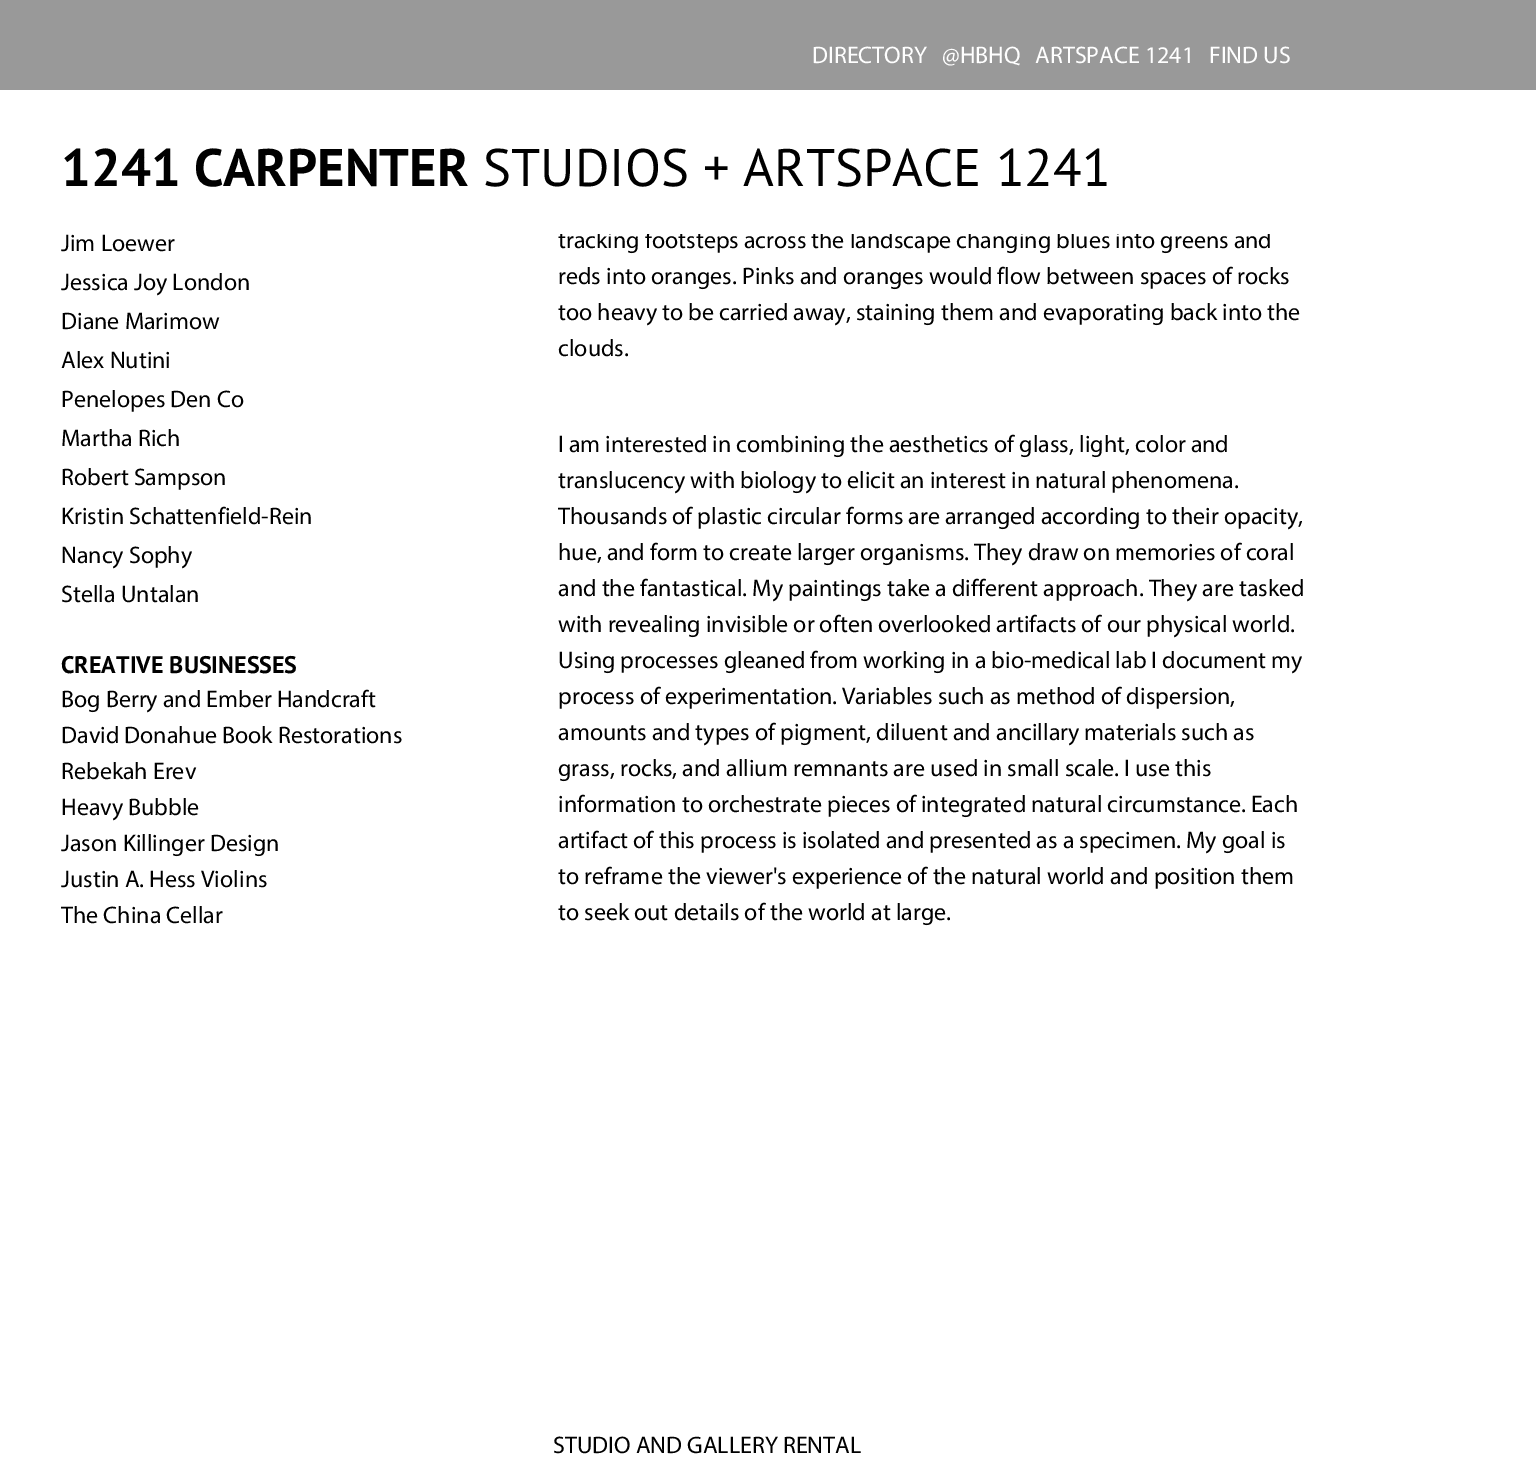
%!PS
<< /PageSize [1536 1477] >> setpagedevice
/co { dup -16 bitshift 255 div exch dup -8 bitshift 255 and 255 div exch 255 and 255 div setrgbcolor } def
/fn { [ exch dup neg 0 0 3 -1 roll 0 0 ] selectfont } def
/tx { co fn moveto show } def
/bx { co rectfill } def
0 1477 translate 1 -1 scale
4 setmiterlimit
0 0 1536 1477 16#FFFFFF bx
0 0 1536 90 16#999999 bx
(DIRECTORY) 812 63 /Myriad-Regular 24 16#FFFFFF tx
(@HBHQ) 942 63 /Myriad-Regular 24 16#FFFFFF tx
(ARTSPACE 1241) 1035 63 /Myriad-Regular 24 16#FFFFFF tx
(FIND US) 1209 63 /Myriad-Regular 24 16#FFFFFF tx
(Jim Loewer) 61 251 /Myriad-Regular 24 16#000000 tx
(Jessica Joy London) 61 290 /Myriad-Regular 24 16#000000 tx
(Diane Marimow) 61 329 /Myriad-Regular 24 16#000000 tx
(Alex Nutini) 61 368 /Myriad-Regular 24 16#000000 tx
(Penelopes Den Co) 61 407 /Myriad-Regular 24 16#000000 tx
(Martha Rich) 61 446 /Myriad-Regular 24 16#000000 tx
(Robert Sampson) 61 485 /Myriad-Regular 24 16#000000 tx
(Kristin Schattenfield-Rein) 61 524 /Myriad-Regular 24 16#000000 tx
(Nancy Sophy) 61 563 /Myriad-Regular 24 16#000000 tx
(Stella Untalan) 61 602 /Myriad-Regular 24 16#000000 tx
(CREATIVE BUSINESSES) 61 673 /PTSans-Bold 24 16#000000 tx
(Bog Berry and Ember Handcraft) 61 707 /Myriad-Regular 24 16#000000 tx
(David Donahue Book Restorations) 61 743 /Myriad-Regular 24 16#000000 tx
(Rebekah Erev) 61 779 /Myriad-Regular 24 16#000000 tx
(Heavy Bubble) 61 815 /Myriad-Regular 24 16#000000 tx
(Jason Killinger Design) 61 851 /Myriad-Regular 24 16#000000 tx
(Justin A. Hess Violins) 61 887 /Myriad-Regular 24 16#000000 tx
(The China Cellar) 61 923 /Myriad-Regular 24 16#000000 tx
(tracking footsteps across the landscape changing blues into greens and) 558 248 /Myriad-Regular 24 16#000000 tx
(reds into oranges. Pinks and oranges would flow between spaces of rocks) 558 284 /Myriad-Regular 24 16#000000 tx
(too heavy to be carried away, staining them and evaporating back into the) 558 320 /Myriad-Regular 24 16#000000 tx
(clouds.) 558 356 /Myriad-Regular 24 16#000000 tx
(I am interested in combining the aesthetics of glass, light, color and) 558 452 /Myriad-Regular 24 16#000000 tx
(translucency with biology to elicit an interest in natural phenomena.) 558 488 /Myriad-Regular 24 16#000000 tx
(Thousands of plastic circular forms are arranged according to their opacity,) 558 524 /Myriad-Regular 24 16#000000 tx
(hue, and form to create larger organisms. They draw on memories of coral) 558 560 /Myriad-Regular 24 16#000000 tx
(and the fantastical. My paintings take a different approach. They are tasked) 558 596 /Myriad-Regular 24 16#000000 tx
(with revealing invisible or often overlooked artifacts of our physical world.) 558 632 /Myriad-Regular 24 16#000000 tx
(Using processes gleaned from working in a bio-medical lab I document my) 558 668 /Myriad-Regular 24 16#000000 tx
(process of experimentation. Variables such as method of dispersion,) 558 704 /Myriad-Regular 24 16#000000 tx
(amounts and types of pigment, diluent and ancillary materials such as) 558 740 /Myriad-Regular 24 16#000000 tx
(grass, rocks, and allium remnants are used in small scale. I use this) 558 776 /Myriad-Regular 24 16#000000 tx
(information to orchestrate pieces of integrated natural circumstance. Each) 558 812 /Myriad-Regular 24 16#000000 tx
(artifact of this process is isolated and presented as a specimen. My goal is) 558 848 /Myriad-Regular 24 16#000000 tx
(to reframe the viewer's experience of the natural world and position them) 558 884 /Myriad-Regular 24 16#000000 tx
(to seek out details of the world at large.) 558 920 /Myriad-Regular 24 16#000000 tx
559 230 712 4 16#FFFFFF bx
(1241 CARPENTER) 61 186 /PTSans-Bold 52.75 16#000000 tx
(STUDIOS + ARTSPACE 1241) 483 186 /PTSans-Regular 52.75 16#000000 tx
(STUDIO AND GALLERY RENTAL) 553 1453 /Myriad-Regular 24 16#000000 tx
showpage
